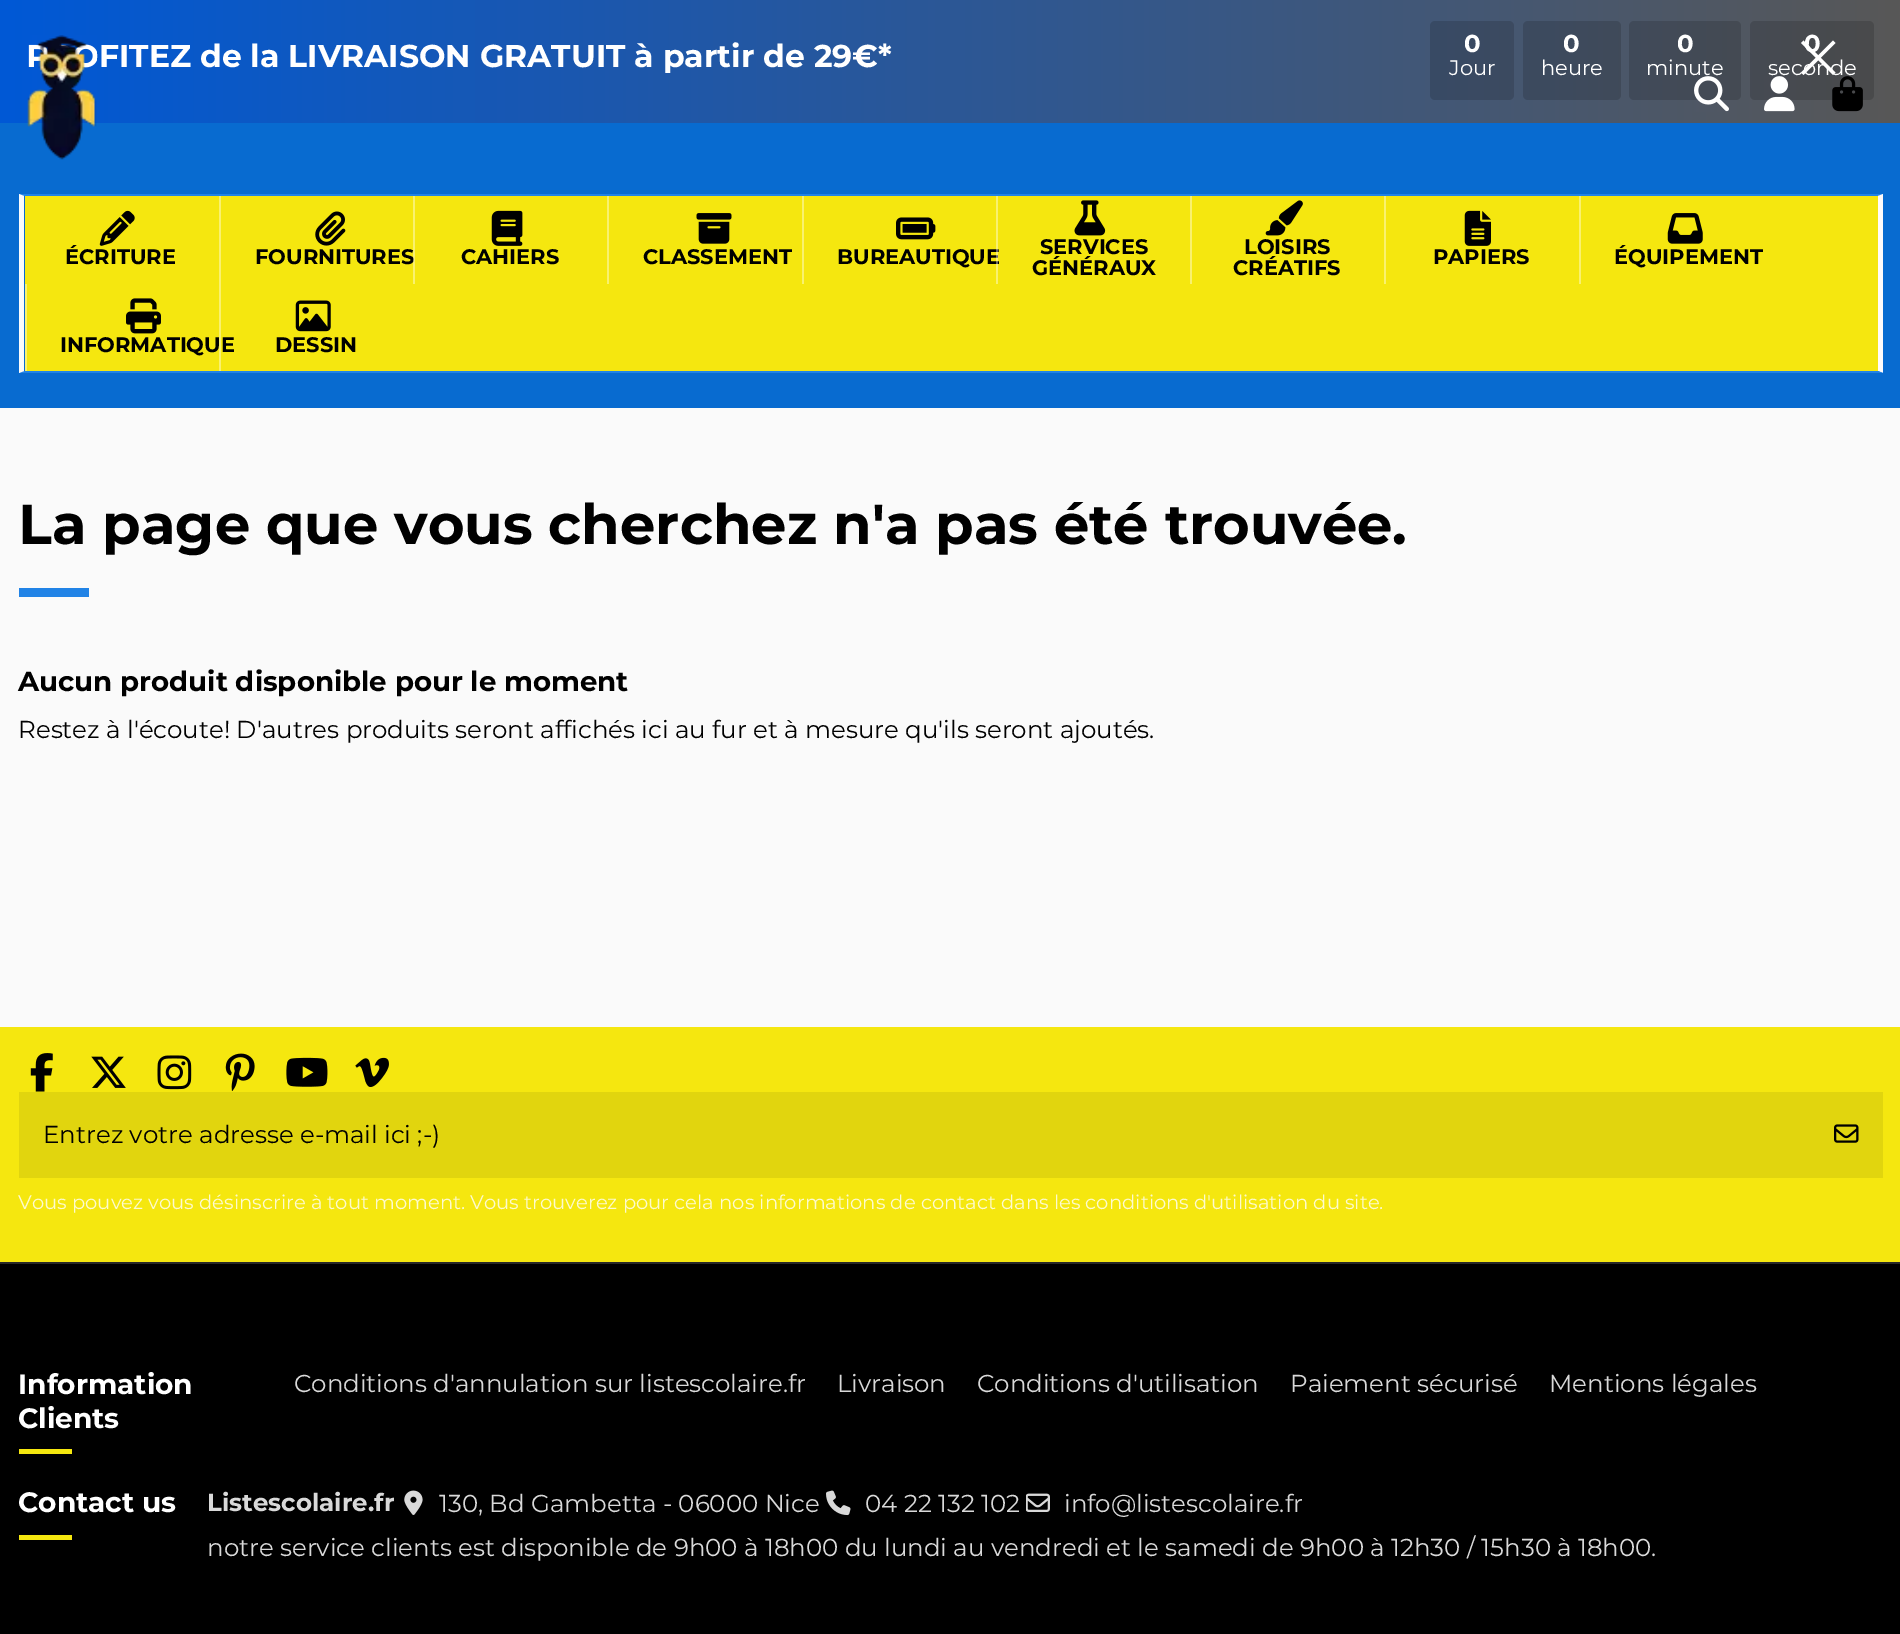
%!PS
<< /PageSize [1900 1634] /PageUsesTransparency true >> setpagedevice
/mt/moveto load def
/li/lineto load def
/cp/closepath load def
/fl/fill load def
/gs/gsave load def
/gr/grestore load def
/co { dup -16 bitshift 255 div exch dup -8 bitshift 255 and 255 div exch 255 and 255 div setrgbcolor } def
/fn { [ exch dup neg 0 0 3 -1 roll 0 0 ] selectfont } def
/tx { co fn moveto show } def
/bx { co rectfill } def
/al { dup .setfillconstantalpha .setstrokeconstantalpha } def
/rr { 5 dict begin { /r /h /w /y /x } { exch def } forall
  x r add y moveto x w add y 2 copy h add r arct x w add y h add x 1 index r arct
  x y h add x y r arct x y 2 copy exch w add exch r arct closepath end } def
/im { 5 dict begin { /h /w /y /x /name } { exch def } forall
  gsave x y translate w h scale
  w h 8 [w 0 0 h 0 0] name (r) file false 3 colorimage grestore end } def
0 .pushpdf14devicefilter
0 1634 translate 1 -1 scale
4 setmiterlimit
0 0 1900 1634 16#FAFAFA bx
0 123 1900 285 16#086BD0 bx
gs 0 0 mt 1900 0 li 1900 123 li 0 123 li cp clip newpath
<< /ShadingType 2 /ColorSpace /DeviceRGB /Coords [0 61 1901 61] /Extend [true true] /Function << /FunctionType 2 /Domain [0 1] /C0 [0 .345 .839] /C1 [.345 .341 .341] /N 1 >> >> shfill gr
0.15 al
16#000000 co
1430 21 84 79 5 rr fl
1523 21 98 79 5 rr fl
1629 21 112 79 5 rr fl
1750 21 124 79 5 rr fl
1 al
16#FFFFFF co
1833 40.5 mt 1835.5 43 li 1803.5 75 li 1801 72.5 li cp fl
1801 43 mt 1803.5 40.5 li 1835.5 72.5 li 1833 75 li cp fl
(media/2.raw) 1694 76 35 36 im
(media/3.raw) 1764 76 31 36 im
(media/4.raw) 1832 76 31 36 im
25 196 1853 175 16#F5E70F bx
16#2183E6 co
19 194 mt 1883 194 li 1878 196 li 24 196 li cp fl
16#FFFBFB co
1883 194 mt 1883 373 li 1878 371 li 1878 196 li cp fl
16#2183E6 co
1883 373 mt 19 373 li 24 371 li 1878 371 li cp fl
16#FBFBFB co
19 373 mt 19 194 li 24 196 li 24 371 li cp fl
(media/5.raw) 99 210 36 36 im
219 196 2 88 16#F9F16F bx
(media/6.raw) 315 211 31 35 im
(media/7.raw) 491 210 32 36 im
607 196 2 88 16#F9F16F bx
(media/8.raw) 696 213 36 31 im
802 196 2 88 16#F9F16F bx
(media/9.raw) 896 217 40 23 im
(media/10.raw) 1074 200 32 36 im
1190 196 2 88 16#F9F16F bx
(media/11.raw) 1265 200 38 36 im
1384 196 2 88 16#F9F16F bx
(media/12.raw) 1464 210 27 36 im
1579 196 2 88 16#F9F16F bx
(media/13.raw) 1667 213 36 31 im
25 284 2 87 16#F9F16F bx
(media/14.raw) 126 298 35 36 im
(media/15.raw) 295 300 36 32 im
19 588 70 9 16#2183E6 bx
0 1264 1900 370 16#000000 bx
0 1027 1900 235 16#F5E70F bx
(media/16.raw) 30 1053 23 39 im
(media/17.raw) 91 1056 35 32 im
(media/18.raw) 157 1055 35 35 im
(media/19.raw) 225 1053 30 38 im
(media/20.raw) 286 1057 42 30 im
(media/21.raw) 355 1057 34 30 im
19 1092 1864 86 16#E1D50E bx
(media/22.raw) 1834 1124 25 19 im
0 1262 1900 2 16#282828 bx
19 1449 53 5 16#F5E70F bx
19 1535 53 5 16#F5E70F bx
(media/23.raw) 404 1490 19 25 im
(media/24.raw) 826 1490 25 26 im
(media/25.raw) 1026 1493 24 19 im
(PROFITEZ de la LIVRAISON GRATUIT à partir de 29€*) 26 67 /Montserrat-Bold 31.5 16#FFFFFF tx
(0) 1464 52 /Montserrat-Bold 24.5 16#FFFFFF tx
(Jour) 1449 75 /Montserrat-Regular 21 16#FFFFFF tx
(0) 1563 52 /Montserrat-Bold 24.5 16#FFFFFF tx
(heure) 1541 75 /Montserrat-Regular 21 16#FFFFFF tx
(0) 1677 52 /Montserrat-Bold 24.5 16#FFFFFF tx
(minute) 1646 75 /Montserrat-Regular 21 16#FFFFFF tx
(0) 1804 52 /Montserrat-Bold 24.5 16#FFFFFF tx
(seconde) 1768 75 /Montserrat-Regular 21 16#FFFFFF tx
(media/1.raw) 27 35 70 125 im
(ÉCRITURE) 65 264 /Montserrat-Bold 21 16#000000 tx
(FOURNITURES) 255 264 /Montserrat-Bold 21 16#000000 tx
0.4 al
413 196 2 88 16#FFFFFF bx
1 al
(CAHIERS) 461 264 /Montserrat-Bold 21 16#000000 tx
(CLASSEMENT) 643 264 /Montserrat-Bold 21 16#000000 tx
(BUREAUTIQUE) 837 264 /Montserrat-Bold 21 16#000000 tx
0.4 al
996 196 2 88 16#FFFFFF bx
1 al
(SERVICES) 1040 254 /Montserrat-Bold 21 16#000000 tx
(GÉNÉRAUX) 1032 275 /Montserrat-Bold 21 16#000000 tx
(LOISIRS) 1244 254 /Montserrat-Bold 21 16#000000 tx
(CRÉATIFS) 1233 275 /Montserrat-Bold 21 16#000000 tx
(PAPIERS) 1433 264 /Montserrat-Bold 21 16#000000 tx
(ÉQUIPEMENT) 1614 264 /Montserrat-Bold 21 16#000000 tx
(INFORMATIQUE) 60 352 /Montserrat-Bold 21 16#000000 tx
0.4 al
219 284 2 87 16#FFFFFF bx
1 al
(DESSIN) 275 352 /Montserrat-Bold 21 16#000000 tx
(La page que vous cherchez n'a pas été trouvée.) 18 544 /Montserrat-Bold 56 16#000000 tx
(Aucun produit disponible pour le moment) 18 691 /Montserrat-Bold 27.6 16#000000 tx
(Restez à l'écoute! D'autres produits seront affichés ici au fur et à mesure qu'ils seront ajoutés.) 18 738 /Montserrat-Regular 24.5 16#000000 tx
(Entrez votre adresse e-mail ici ;-\)) 43 1143 /Montserrat-Regular 24.5 16#000000 tx
(Vous pouvez vous désinscrire à tout moment. Vous trouverez pour cela nos informations de contact dans les conditions d'utilisation du site.) 18 1209 /Montserrat-Regular 19.6 16#FDFACF tx
(Information) 18 1394 /Montserrat-Bold 28 16#FFFFFF tx
(Clients) 18 1428 /Montserrat-Bold 28 16#FFFFFF tx
(Conditions d'annulation sur listescolaire.fr) 294 1392 /Montserrat-Regular 24.5 16#D9D9D9 tx
(Livraison) 837 1392 /Montserrat-Regular 24.5 16#D9D9D9 tx
(Conditions d'utilisation) 977 1392 /Montserrat-Regular 24.5 16#D9D9D9 tx
(Paiement sécurisé) 1290 1392 /Montserrat-Regular 24.5 16#D9D9D9 tx
(Mentions légales) 1549 1392 /Montserrat-Regular 24.5 16#D9D9D9 tx
(Contact us) 18 1512 /Montserrat-Bold 28 16#FFFFFF tx
(Listescolaire.fr) 207 1511 /Montserrat-Bold 24.5 16#D9D9D9 tx
(130, Bd Gambetta - 06000 Nice) 439 1512 /Montserrat-Regular 24.5 16#D9D9D9 tx
(04 22 132 102) 865 1512 /Montserrat-Regular 24.5 16#D9D9D9 tx
(info@listescolaire.fr) 1064 1512 /Montserrat-Regular 24.5 16#D9D9D9 tx
(notre service clients est disponible de 9h00 à 18h00 du lundi au vendredi et le samedi de 9h00 à 12h30 / 15h30 à 18h00.) 207 1556 /Montserrat-Regular 24.5 16#D9D9D9 tx
.poppdf14devicefilter showpage
